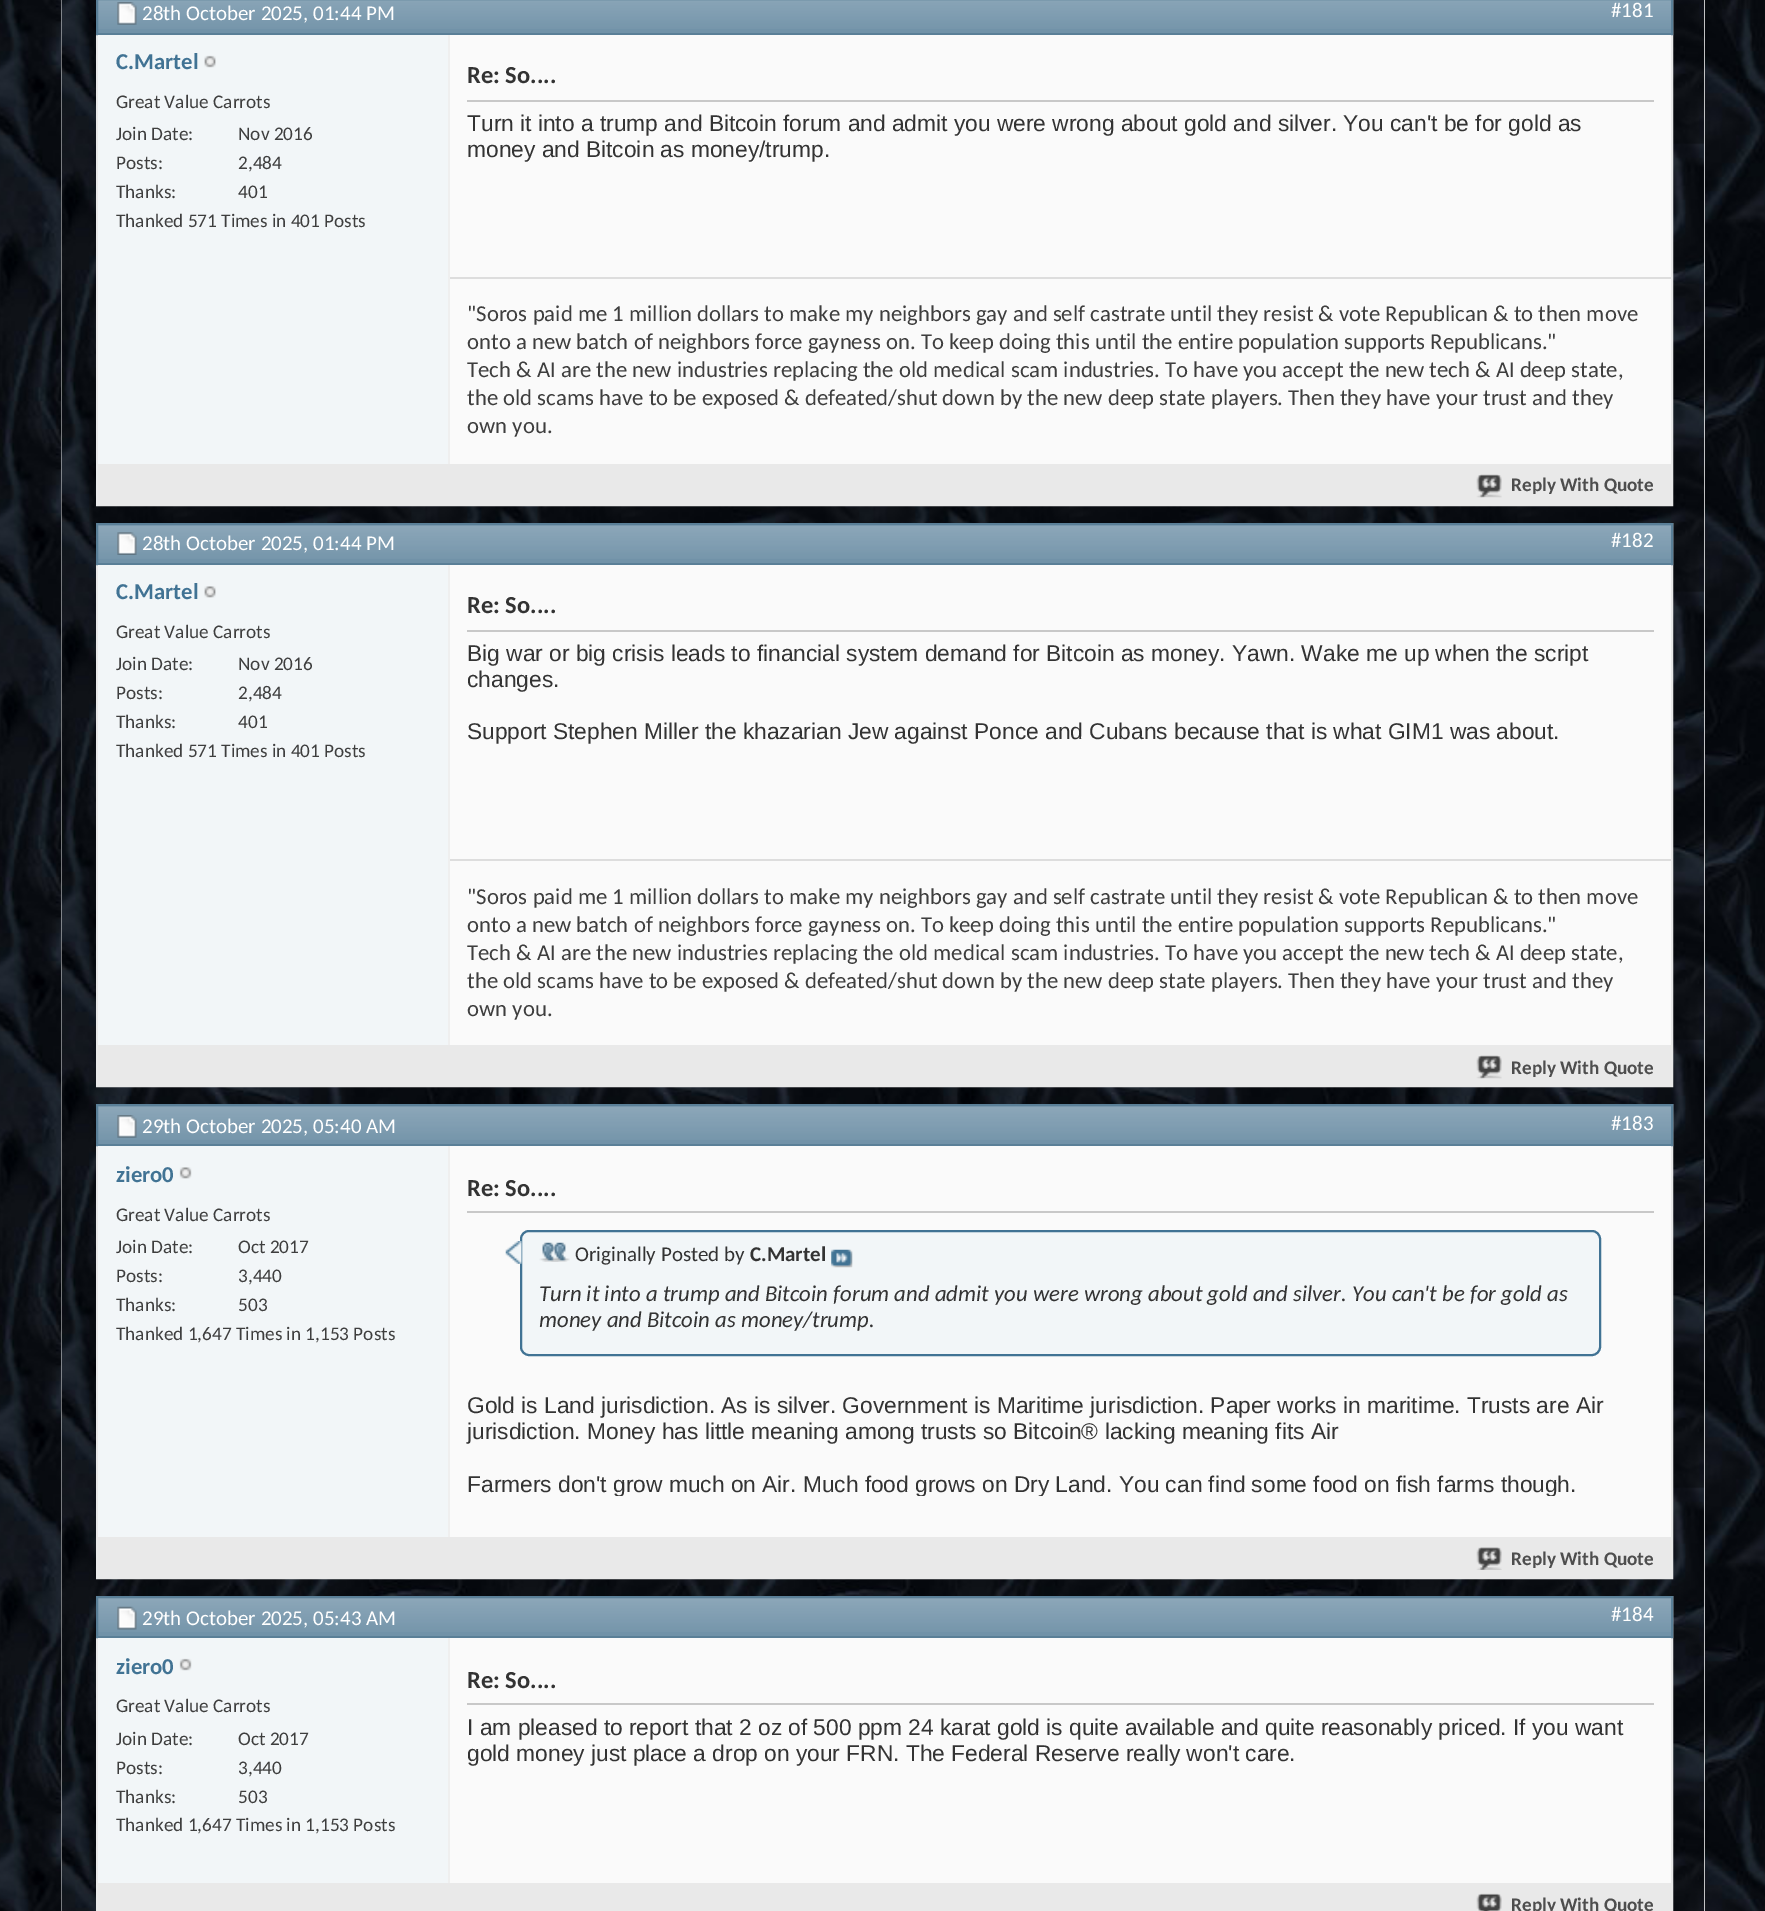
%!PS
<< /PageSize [1765 1911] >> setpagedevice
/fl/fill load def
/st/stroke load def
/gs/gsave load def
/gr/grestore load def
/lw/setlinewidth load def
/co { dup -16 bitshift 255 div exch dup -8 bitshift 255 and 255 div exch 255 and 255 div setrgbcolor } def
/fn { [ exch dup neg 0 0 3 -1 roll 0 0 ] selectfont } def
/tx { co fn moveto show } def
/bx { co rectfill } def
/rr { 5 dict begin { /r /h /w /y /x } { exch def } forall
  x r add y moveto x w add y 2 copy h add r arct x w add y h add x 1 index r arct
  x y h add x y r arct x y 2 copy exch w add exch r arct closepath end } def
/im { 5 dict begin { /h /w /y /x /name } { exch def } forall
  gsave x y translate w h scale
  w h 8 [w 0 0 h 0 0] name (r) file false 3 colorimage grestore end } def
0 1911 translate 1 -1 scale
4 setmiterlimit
0 0 1765 1911 16#FFFFFF bx
(media/1.raw) 0 0 1765 1911 im
61 0 1644 1911 16#FFFFFF bx
(media/2.raw) 61 0 1644 1911 im
16#E9E9E9 co
2 lw
97 -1 1575 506 rectstroke
98 0 1573 33 16#7192A8 bx
(media/3.raw) 98 0 1573 29 im
16#5A7F97 co
97 -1 1575 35 rectstroke
(media/4.raw) 117 2 20 23 im
98 35 350 429 16#F2F6F8 bx
(media/5.raw) 204 55 12 13 im
450 35 1221 429 16#FAFAFA bx
448 35 2 429 16#EFEFEF bx
467 100 1187 2 16#C8C8C8 bx
450 277 1221 2 16#DDDDDD bx
98 464 1573 40 16#E9E9E9 bx
(media/6.raw) 1476 474 26 24 im
97 524 1575 562 rectstroke
98 525 1573 38 16#7192A8 bx
(media/7.raw) 98 525 1573 34 im
16#5A7F97 co
97 524 1575 40 rectstroke
(media/8.raw) 117 532 20 23 im
98 565 350 480 16#F2F6F8 bx
(media/9.raw) 204 586 12 12 im
450 565 1221 480 16#FAFAFA bx
448 565 2 480 16#EFEFEF bx
467 630 1187 2 16#C8C8C8 bx
450 859 1221 2 16#DDDDDD bx
98 1045 1573 40 16#E9E9E9 bx
(media/6.raw) 1476 1055 26 24 im
97 1105 1575 473 rectstroke
98 1106 1573 38 16#7192A8 bx
(media/7.raw) 98 1106 1573 34 im
16#5A7F97 co
97 1105 1575 40 rectstroke
(media/10.raw) 117 1115 20 23 im
98 1146 350 391 16#F2F6F8 bx
(media/11.raw) 179 1167 13 12 im
450 1146 1221 391 16#FAFAFA bx
448 1146 2 391 16#EFEFEF bx
467 1211 1187 2 16#C8C8C8 bx
16#F2F6F8 co
521 1231 1079 124 8 rr gs fl gr
16#417394 co
st
(media/12.raw) 505 1241 17 23 im
(media/13.raw) 539 1242 31 20 im
(media/14.raw) 831 1249 22 19 im
98 1537 1573 40 16#E9E9E9 bx
(media/15.raw) 1476 1547 26 23 im
97 1597 1575 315 rectstroke
98 1598 1573 38 16#7192A8 bx
(media/16.raw) 98 1598 1573 34 im
16#5A7F97 co
97 1597 1575 40 rectstroke
(media/17.raw) 117 1606 20 24 im
98 1638 350 245 16#F2F6F8 bx
(media/18.raw) 179 1658 13 13 im
450 1638 1221 245 16#FAFAFA bx
448 1638 2 245 16#EFEFEF bx
467 1703 1187 2 16#C8C8C8 bx
98 1883 1573 28 16#E9E9E9 bx
(media/19.raw) 1476 1893 26 18 im
(28th October 2025, 01:44 PM) 142 20 /Carlito-Regular 21 16#FFFFFF tx
(#181) 1611 17 /Carlito-Regular 21 16#FFFFFF tx
(C.Martel) 116 69 /Carlito-Bold 22.75 16#417394 tx
(Great Value Carrots) 116 108 /Carlito-Regular 19.25 16#3E3E3E tx
(Join Date:) 116 140 /Carlito-Regular 19.25 16#3E3E3E tx
(Nov 2016) 238 140 /Carlito-Regular 19.25 16#3E3E3E tx
(Posts:) 116 169 /Carlito-Regular 19.25 16#3E3E3E tx
(2,484) 238 169 /Carlito-Regular 19.25 16#3E3E3E tx
(Thanks:) 116 198 /Carlito-Regular 19.25 16#3E3E3E tx
(401) 238 198 /Carlito-Regular 19.25 16#3E3E3E tx
(Thanked 571 Times in 401 Posts) 116 227 /Carlito-Regular 19.25 16#3E3E3E tx
(Re: So....) 467 83 /Carlito-Bold 24.5 16#333333 tx
(Turn it into a trump and Bitcoin forum and admit you were wrong about gold and silver. You can't be for gold as) 467 131 /LiberationSans-Regular 22.75 16#333333 tx
(money and Bitcoin as money/trump.) 467 157 /LiberationSans-Regular 22.75 16#333333 tx
("Soros paid me 1 million dollars to make my neighbors gay and self castrate until they resist & vote Republican & to then move) 467 321 /Carlito-Regular 22.75 16#3E3E3E tx
(onto a new batch of neighbors force gayness on. To keep doing this until the entire population supports Republicans.") 467 349 /Carlito-Regular 22.75 16#3E3E3E tx
(Tech & AI are the new industries replacing the old medical scam industries. To have you accept the new tech & AI deep state,) 467 377 /Carlito-Regular 22.75 16#3E3E3E tx
(the old scams have to be exposed & defeated/shut down by the new deep state players. Then they have your trust and they) 467 405 /Carlito-Regular 22.75 16#3E3E3E tx
(own you.) 467 433 /Carlito-Regular 22.75 16#3E3E3E tx
(Reply With Quote) 1511 491 /Carlito-Bold 19.25 16#4E4E4E tx
(28th October 2025, 01:44 PM) 142 550 /Carlito-Regular 21 16#FFFFFF tx
(#182) 1611 547 /Carlito-Regular 21 16#FFFFFF tx
(C.Martel) 116 599 /Carlito-Bold 22.75 16#417394 tx
(Great Value Carrots) 116 638 /Carlito-Regular 19.25 16#3E3E3E tx
(Join Date:) 116 670 /Carlito-Regular 19.25 16#3E3E3E tx
(Nov 2016) 238 670 /Carlito-Regular 19.25 16#3E3E3E tx
(Posts:) 116 699 /Carlito-Regular 19.25 16#3E3E3E tx
(2,484) 238 699 /Carlito-Regular 19.25 16#3E3E3E tx
(Thanks:) 116 728 /Carlito-Regular 19.25 16#3E3E3E tx
(401) 238 728 /Carlito-Regular 19.25 16#3E3E3E tx
(Thanked 571 Times in 401 Posts) 116 757 /Carlito-Regular 19.25 16#3E3E3E tx
(Re: So....) 467 613 /Carlito-Bold 24.5 16#333333 tx
(Big war or big crisis leads to financial system demand for Bitcoin as money. Yawn. Wake me up when the script) 467 661 /LiberationSans-Regular 22.75 16#333333 tx
(changes.) 467 687 /LiberationSans-Regular 22.75 16#333333 tx
(Support Stephen Miller the khazarian Jew against Ponce and Cubans because that is what GIM1 was about.) 467 739 /LiberationSans-Regular 22.75 16#333333 tx
("Soros paid me 1 million dollars to make my neighbors gay and self castrate until they resist & vote Republican & to then move) 467 904 /Carlito-Regular 22.75 16#3E3E3E tx
(onto a new batch of neighbors force gayness on. To keep doing this until the entire population supports Republicans.") 467 932 /Carlito-Regular 22.75 16#3E3E3E tx
(Tech & AI are the new industries replacing the old medical scam industries. To have you accept the new tech & AI deep state,) 467 960 /Carlito-Regular 22.75 16#3E3E3E tx
(the old scams have to be exposed & defeated/shut down by the new deep state players. Then they have your trust and they) 467 988 /Carlito-Regular 22.75 16#3E3E3E tx
(own you.) 467 1016 /Carlito-Regular 22.75 16#3E3E3E tx
(Reply With Quote) 1511 1074 /Carlito-Bold 19.25 16#4E4E4E tx
(29th October 2025, 05:40 AM) 142 1133 /Carlito-Regular 21 16#FFFFFF tx
(#183) 1611 1130 /Carlito-Regular 21 16#FFFFFF tx
(ziero0) 116 1182 /Carlito-Bold 22.75 16#417394 tx
(Great Value Carrots) 116 1221 /Carlito-Regular 19.25 16#3E3E3E tx
(Join Date:) 116 1253 /Carlito-Regular 19.25 16#3E3E3E tx
(Oct 2017) 238 1253 /Carlito-Regular 19.25 16#3E3E3E tx
(Posts:) 116 1282 /Carlito-Regular 19.25 16#3E3E3E tx
(3,440) 238 1282 /Carlito-Regular 19.25 16#3E3E3E tx
(Thanks:) 116 1311 /Carlito-Regular 19.25 16#3E3E3E tx
(503) 238 1311 /Carlito-Regular 19.25 16#3E3E3E tx
(Thanked 1,647 Times in 1,153 Posts) 116 1340 /Carlito-Regular 19.25 16#3E3E3E tx
(Re: So....) 467 1196 /Carlito-Bold 24.5 16#333333 tx
(Originally Posted by) 575 1261 /Carlito-Regular 21 16#333333 tx
(C.Martel) 750 1261 /Carlito-Bold 21 16#333333 tx
(Turn it into a trump and Bitcoin forum and admit you were wrong about gold and silver. You can't be for gold as) 539 1301 /Carlito-Italic 22.75 16#333333 tx
(money and Bitcoin as money/trump.) 539 1327 /Carlito-Italic 22.75 16#333333 tx
(Gold is Land jurisdiction. As is silver. Government is Maritime jurisdiction. Paper works in maritime. Trusts are Air) 467 1413 /LiberationSans-Regular 22.75 16#333333 tx
(jurisdiction. Money has little meaning among trusts so Bitcoin® lacking meaning fits Air) 467 1439 /LiberationSans-Regular 22.75 16#333333 tx
gs
467 1222 1187 274 rectclip
(Farmers don't grow much on Air. Much food grows on Dry Land. You can find some food on fish farms though.) 467 1492 /LiberationSans-Regular 22.75 16#333333 tx
gr
(Reply With Quote) 1511 1565 /Carlito-Bold 19.25 16#4E4E4E tx
(29th October 2025, 05:43 AM) 142 1625 /Carlito-Regular 21 16#FFFFFF tx
(#184) 1611 1621 /Carlito-Regular 21 16#FFFFFF tx
(ziero0) 116 1674 /Carlito-Bold 22.75 16#417394 tx
(Great Value Carrots) 116 1712 /Carlito-Regular 19.25 16#3E3E3E tx
(Join Date:) 116 1745 /Carlito-Regular 19.25 16#3E3E3E tx
(Oct 2017) 238 1745 /Carlito-Regular 19.25 16#3E3E3E tx
(Posts:) 116 1774 /Carlito-Regular 19.25 16#3E3E3E tx
(3,440) 238 1774 /Carlito-Regular 19.25 16#3E3E3E tx
(Thanks:) 116 1803 /Carlito-Regular 19.25 16#3E3E3E tx
(503) 238 1803 /Carlito-Regular 19.25 16#3E3E3E tx
(Thanked 1,647 Times in 1,153 Posts) 116 1831 /Carlito-Regular 19.25 16#3E3E3E tx
(Re: So....) 467 1688 /Carlito-Bold 24.5 16#333333 tx
(I am pleased to report that 2 oz of 500 ppm 24 karat gold is quite available and quite reasonably priced. If you want) 467 1735 /LiberationSans-Regular 22.75 16#333333 tx
(gold money just place a drop on your FRN. The Federal Reserve really won't care.) 467 1761 /LiberationSans-Regular 22.75 16#333333 tx
(Reply With Quote) 1511 1911 /Carlito-Bold 19.25 16#4E4E4E tx
showpage
